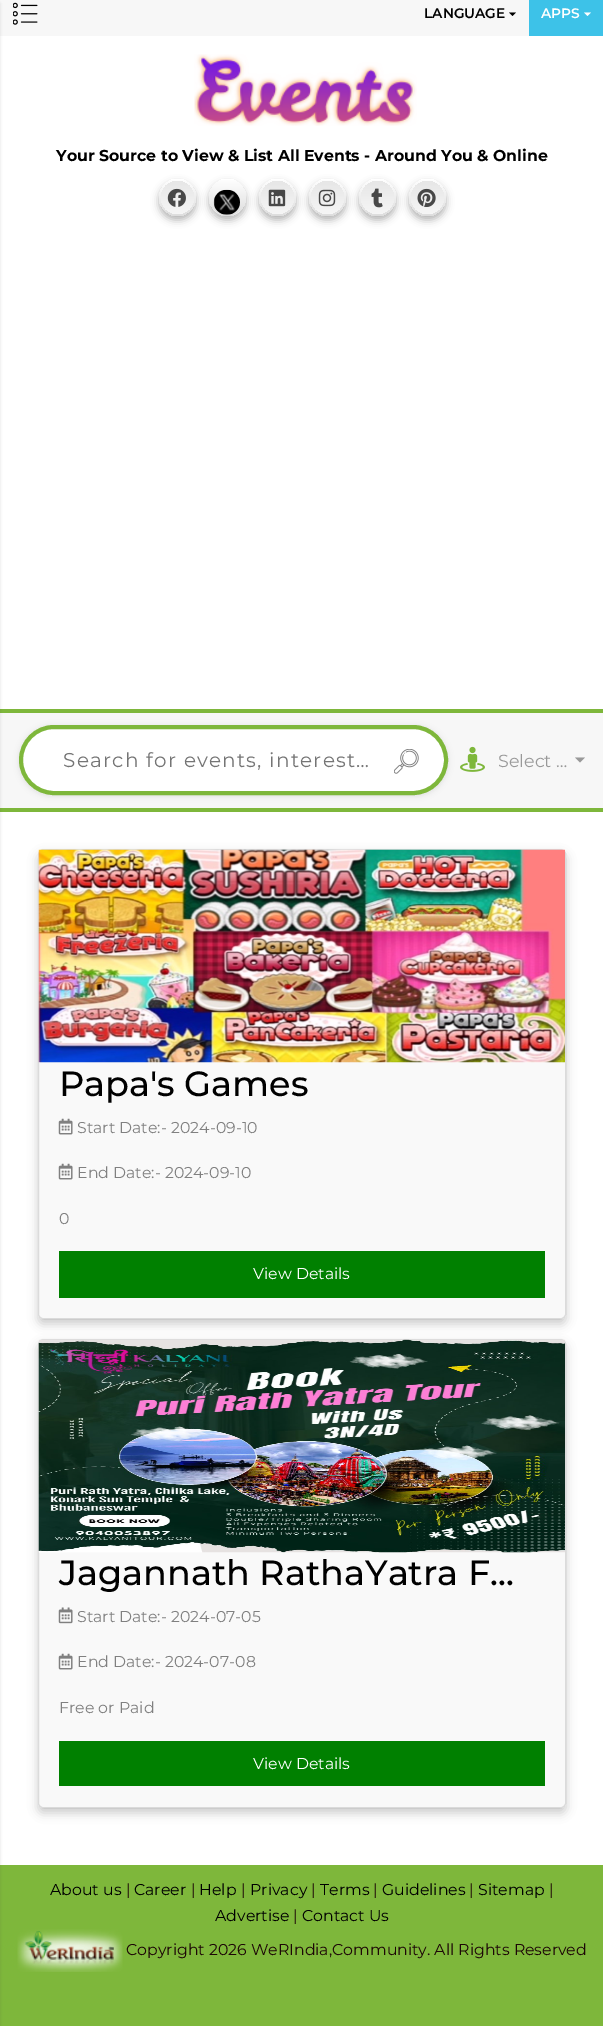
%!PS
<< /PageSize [603 2026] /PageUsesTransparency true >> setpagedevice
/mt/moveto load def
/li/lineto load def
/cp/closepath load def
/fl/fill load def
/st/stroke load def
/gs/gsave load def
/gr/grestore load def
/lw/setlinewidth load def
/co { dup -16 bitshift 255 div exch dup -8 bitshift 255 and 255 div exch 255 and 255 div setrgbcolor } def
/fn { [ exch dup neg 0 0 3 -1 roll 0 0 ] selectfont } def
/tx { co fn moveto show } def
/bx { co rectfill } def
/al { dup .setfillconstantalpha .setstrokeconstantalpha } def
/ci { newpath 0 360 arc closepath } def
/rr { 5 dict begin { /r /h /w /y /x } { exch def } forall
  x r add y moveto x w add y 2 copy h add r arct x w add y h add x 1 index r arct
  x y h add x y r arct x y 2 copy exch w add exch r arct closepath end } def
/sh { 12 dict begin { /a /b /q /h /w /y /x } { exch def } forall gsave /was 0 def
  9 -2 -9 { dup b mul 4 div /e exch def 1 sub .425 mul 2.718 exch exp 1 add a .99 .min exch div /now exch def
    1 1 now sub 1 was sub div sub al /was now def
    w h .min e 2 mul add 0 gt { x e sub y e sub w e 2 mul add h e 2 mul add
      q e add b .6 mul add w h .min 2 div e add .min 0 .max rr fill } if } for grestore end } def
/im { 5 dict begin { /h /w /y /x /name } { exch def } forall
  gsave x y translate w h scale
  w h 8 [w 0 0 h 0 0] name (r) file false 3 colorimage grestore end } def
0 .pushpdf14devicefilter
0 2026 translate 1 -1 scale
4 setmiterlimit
0 0 603 2026 16#FFFFFF bx
0 0 529 36 16#F7F7F7 bx
0 713 603 95 16#F7F7F7 bx
0 709 603 4 16#7EB73B bx
0 808 603 4 16#7EB73B bx
0 1865 603 161 16#7EB73B bx
16#333333 co
-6 4 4 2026 0 2 .5 sh
(media/1.raw) 13 2 25 23 im
16#000000 co
509 12.5 mt 516 12.5 li 512.5 16 li cp fl
529 0 74 36 16#3DC2E8 bx
16#FFFFFF co
584 12.5 mt 591 12.5 li 587.5 16 li cp fl
(media/2.raw) 194 54 223 72 im
16#000000 co
159 183 37 37 18.5 4 .3 sh
gs 177.5 197.5 18.5 ci clip newpath
<< /ShadingType 2 /ColorSpace /DeviceRGB /Coords [178 216 178 179] /Extend [true true] /Function << /FunctionType 2 /Domain [0 1] /C0 [.867 .867 .867] /C1 [1 1 1] /N 1 >> >> shfill gr
0.7 al
gs 177.5 197.5 16.5 ci clip newpath
<< /ShadingType 2 /ColorSpace /DeviceRGB /Coords [178 214 178 181] /Extend [true true] /Function << /FunctionType 2 /Domain [0 1] /C0 [1 1 1] /C1 [.867 .867 .867] /N 1 >> >> shfill gr
1 al
(media/3.raw) 167 188 19 19 im
209 183 37 37 18.5 4 .3 sh
gs 227.5 197.5 18.5 ci clip newpath
<< /ShadingType 2 /ColorSpace /DeviceRGB /Coords [228 216 228 179] /Extend [true true] /Function << /FunctionType 2 /Domain [0 1] /C0 [.867 .867 .867] /C1 [1 1 1] /N 1 >> >> shfill gr
(media/4.raw) 213 189 27 26 im
259 183 37 37 18.5 4 .3 sh
gs 277.5 197.5 18.5 ci clip newpath
<< /ShadingType 2 /ColorSpace /DeviceRGB /Coords [278 216 278 179] /Extend [true true] /Function << /FunctionType 2 /Domain [0 1] /C0 [.867 .867 .867] /C1 [1 1 1] /N 1 >> >> shfill gr
0.7 al
gs 277.5 197.5 16.5 ci clip newpath
<< /ShadingType 2 /ColorSpace /DeviceRGB /Coords [278 214 278 181] /Extend [true true] /Function << /FunctionType 2 /Domain [0 1] /C0 [1 1 1] /C1 [.867 .867 .867] /N 1 >> >> shfill gr
1 al
(media/5.raw) 268 189 18 18 im
309 183 37 37 18.5 4 .3 sh
gs 327.5 197.5 18.5 ci clip newpath
<< /ShadingType 2 /ColorSpace /DeviceRGB /Coords [328 216 328 179] /Extend [true true] /Function << /FunctionType 2 /Domain [0 1] /C0 [.867 .867 .867] /C1 [1 1 1] /N 1 >> >> shfill gr
0.7 al
gs 327.5 197.5 16.5 ci clip newpath
<< /ShadingType 2 /ColorSpace /DeviceRGB /Coords [328 214 328 181] /Extend [true true] /Function << /FunctionType 2 /Domain [0 1] /C0 [1 1 1] /C1 [.867 .867 .867] /N 1 >> >> shfill gr
1 al
(media/6.raw) 318 189 18 18 im
359 183 37 37 18.5 4 .3 sh
gs 377.5 197.5 18.5 ci clip newpath
<< /ShadingType 2 /ColorSpace /DeviceRGB /Coords [378 216 378 179] /Extend [true true] /Function << /FunctionType 2 /Domain [0 1] /C0 [.867 .867 .867] /C1 [1 1 1] /N 1 >> >> shfill gr
0.7 al
gs 377.5 197.5 16.5 ci clip newpath
<< /ShadingType 2 /ColorSpace /DeviceRGB /Coords [378 214 378 181] /Extend [true true] /Function << /FunctionType 2 /Domain [0 1] /C0 [1 1 1] /C1 [.867 .867 .867] /N 1 >> >> shfill gr
1 al
(media/7.raw) 371 188 12 20 im
409 183 37 37 18.5 4 .3 sh
gs 427.5 197.5 18.5 ci clip newpath
<< /ShadingType 2 /ColorSpace /DeviceRGB /Coords [428 216 428 179] /Extend [true true] /Function << /FunctionType 2 /Domain [0 1] /C0 [.867 .867 .867] /C1 [1 1 1] /N 1 >> >> shfill gr
0.7 al
gs 427.5 197.5 16.5 ci clip newpath
<< /ShadingType 2 /ColorSpace /DeviceRGB /Coords [428 214 428 181] /Extend [true true] /Function << /FunctionType 2 /Domain [0 1] /C0 [1 1 1] /C1 [.867 .867 .867] /N 1 >> >> shfill gr
1 al
(media/8.raw) 417 188 19 19 im
19 726 429 70 35 3 .1 sh
16#FFFFFF co
21 727 425 66 33 rr gs fl gr
16#7EB73B co
4 lw
st
(media/9.raw) 394 749 25 25 im
(media/10.raw) 460 746 25 26 im
16#999999 co
575 757.5 mt 585 757.5 li 580 762.5 li cp fl
16#000000 co
38 854 528 470 5 5 .2 sh
16#F9F9F9 co
38 849 528 470 5 rr fl
0.12 al
16#000000 co
1 lw
38.5 849.5 527 469 4.5 rr st
1 al
(media/11.raw) 38 849 527 214 im
(media/12.raw) 58 1118 15 17 im
(media/12.raw) 58 1163 15 17 im
59 1251 486 47 16#008000 bx
16#000000 co
38 1344 528 469 5 5 .2 sh
16#F9F9F9 co
38 1339 528 469 5 rr fl
0.12 al
16#000000 co
38.5 1339.5 527 468 4.5 rr st
1 al
(media/13.raw) 38 1339 527 214 im
(media/14.raw) 58 1607 15 17 im
(media/12.raw) 58 1653 15 17 im
59 1741 486 45 16#008000 bx
(media/15.raw) 17 1929 106 43 im
(LANGUAGE) 424 18 /Montserrat-SemiBold 13.75 16#000000 tx
(APPS) 541 18 /Montserrat-SemiBold 13.75 16#FFFFFF tx
(Your Source to View & List All Events - Around You & Online) 56 161 /Montserrat-Bold 15.75 16#000000 tx
/Montserrat-Regular 20 fn
16#757575 co
63 767 mt 1.25 0 (Search for events, interest…) ashow
(Select …) 498 767 /Montserrat-Regular 17.5 16#999999 tx
(Papa's Games) 59 1096 /Montserrat-Medium 35 16#000000 tx
(Start Date:- 2024-09-10) 77 1133 /Montserrat-Regular 15.75 16#808080 tx
(End Date:- 2024-09-10) 77 1178 /Montserrat-Regular 15.75 16#808080 tx
(0) 59 1224 /Montserrat-Regular 15.75 16#808080 tx
(View Details) 253 1279 /Montserrat-Regular 15.75 16#FFFFFF tx
(Jagannath RathaYatra F...) 59 1585 /Montserrat-Medium 35 16#000000 tx
(Start Date:- 2024-07-05) 77 1622 /Montserrat-Regular 15.75 16#808080 tx
(End Date:- 2024-07-08) 77 1667 /Montserrat-Regular 15.75 16#808080 tx
(Free or Paid) 59 1713 /Montserrat-Regular 15.75 16#808080 tx
(View Details) 253 1769 /Montserrat-Regular 15.75 16#FFFFFF tx
(About us) 50 1895 /Montserrat-Regular 15.75 16#000000 tx
(|) 126 1895 /Montserrat-Regular 15.75 16#1D0606 tx
(Career) 134 1895 /Montserrat-Regular 15.75 16#000000 tx
(|) 191 1895 /Montserrat-Regular 15.75 16#1D0606 tx
(Help) 199 1895 /Montserrat-Regular 15.75 16#000000 tx
(|) 241 1895 /Montserrat-Regular 15.75 16#1D0606 tx
(Privacy) 250 1895 /Montserrat-Regular 15.75 16#000000 tx
(|) 311 1895 /Montserrat-Regular 15.75 16#1D0606 tx
(Terms) 320 1895 /Montserrat-Regular 15.75 16#000000 tx
(|) 373 1895 /Montserrat-Regular 15.75 16#1D0606 tx
(Guidelines) 382 1895 /Montserrat-Regular 15.75 16#000000 tx
(|) 469 1895 /Montserrat-Regular 15.75 16#1D0606 tx
(Sitemap) 478 1895 /Montserrat-Regular 15.75 16#000000 tx
(|) 549 1895 /Montserrat-Regular 15.75 16#1D0606 tx
(Advertise) 215 1921 /Montserrat-Regular 15.75 16#000000 tx
(|) 293 1921 /Montserrat-Regular 15.75 16#1D0606 tx
(Contact Us) 302 1921 /Montserrat-Regular 15.75 16#000000 tx
(Copyright 2026 WeRIndia,Community. All Rights Reserved) 126 1955 /Montserrat-Regular 15.75 16#1D0606 tx
.poppdf14devicefilter showpage
